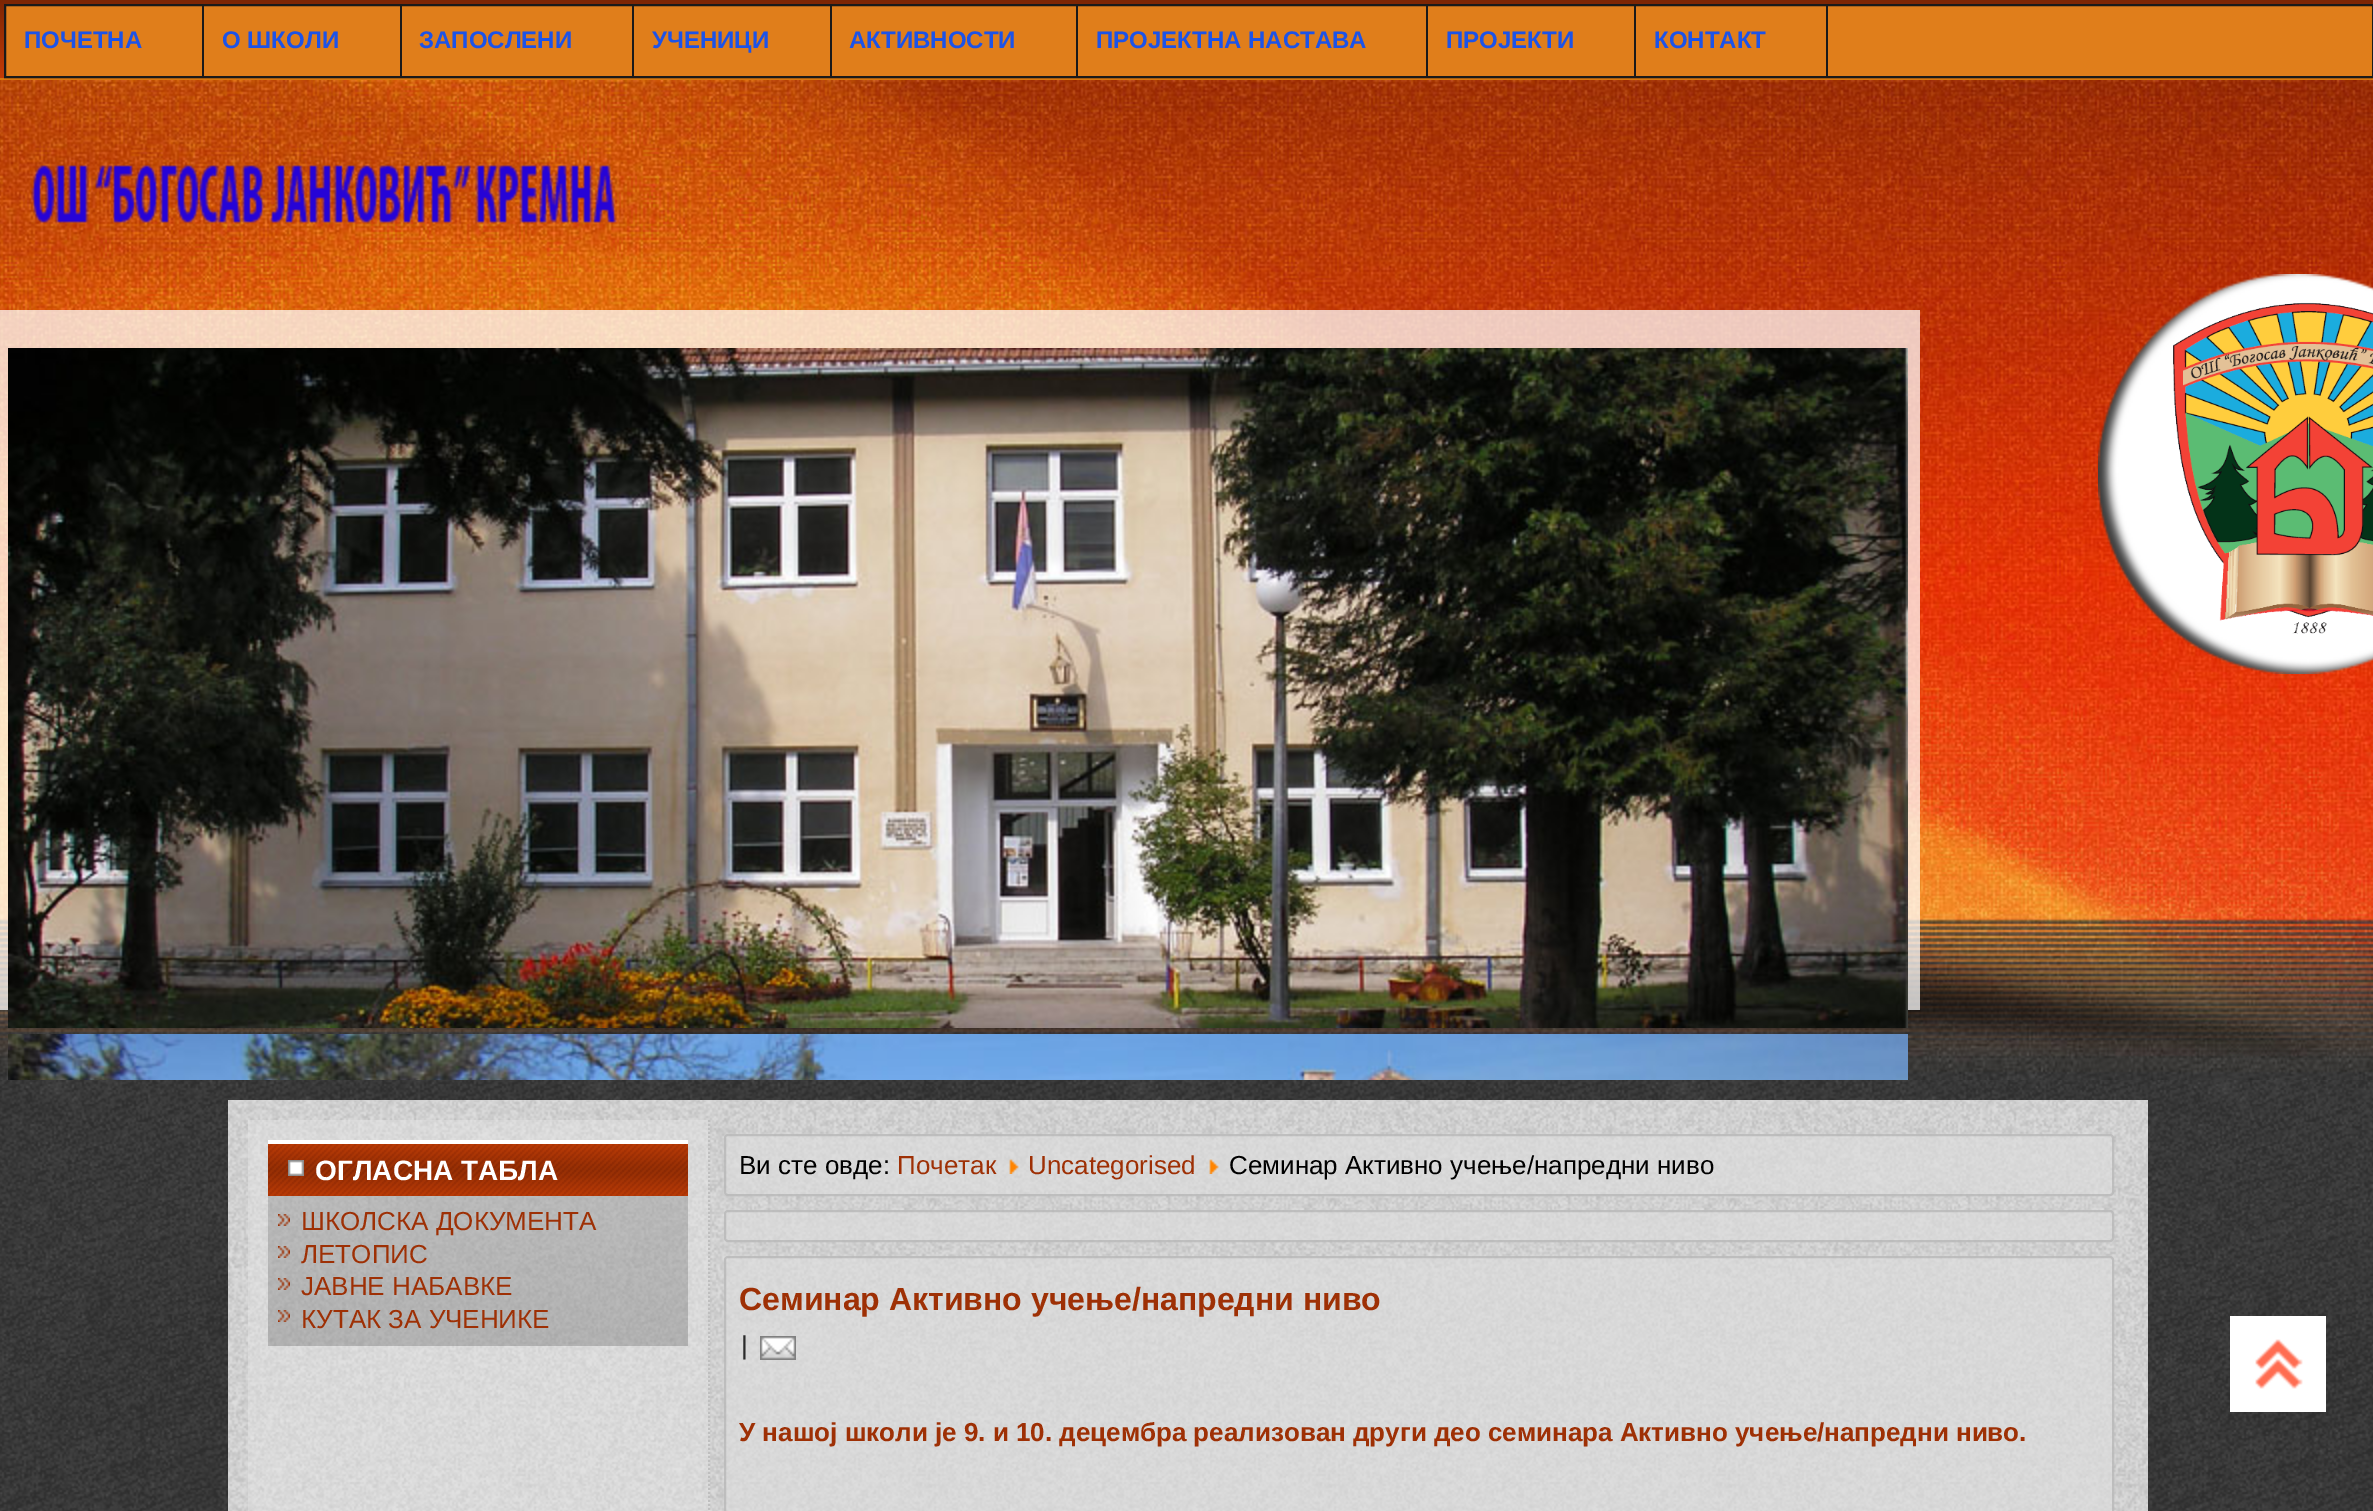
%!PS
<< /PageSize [2373 1511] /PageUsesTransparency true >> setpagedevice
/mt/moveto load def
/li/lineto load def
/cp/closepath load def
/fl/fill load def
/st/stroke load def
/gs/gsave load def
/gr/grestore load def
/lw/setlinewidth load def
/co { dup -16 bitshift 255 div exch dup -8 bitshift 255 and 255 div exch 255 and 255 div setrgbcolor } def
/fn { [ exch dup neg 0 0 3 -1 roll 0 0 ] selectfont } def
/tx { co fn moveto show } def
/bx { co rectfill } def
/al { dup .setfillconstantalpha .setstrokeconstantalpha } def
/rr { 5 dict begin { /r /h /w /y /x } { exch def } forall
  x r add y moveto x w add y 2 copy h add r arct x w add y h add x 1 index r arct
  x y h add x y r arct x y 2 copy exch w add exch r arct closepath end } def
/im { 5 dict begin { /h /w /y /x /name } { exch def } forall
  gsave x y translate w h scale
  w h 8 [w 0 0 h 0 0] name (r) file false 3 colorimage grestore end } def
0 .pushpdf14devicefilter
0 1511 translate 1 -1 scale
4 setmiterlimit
0 0 2373 1511 16#3D3D3D bx
(media/1.raw) 0 1080 2373 431 im
gs 0 0 mt 2373 0 li 2373 78 li 0 78 li cp clip newpath
<< /ShadingType 2 /ColorSpace /DeviceRGB /Coords [1187 0 1187 80] /Extend [true true] /Function << /FunctionType 2 /Domain [0 1] /C0 [.486 .149 .016] /C1 [.776 .235 .024] /N 1 >> >> shfill gr
0 78 2373 2 16#D9760D bx
16#E07E1B co
5 5 mt 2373 5 li 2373 77 li 5 77 li cp gs fl gr
16#1A1A1A co
2 lw
st
202 6 2 70 16#1A1A1A bx
400 6 2 70 16#1A1A1A bx
632 6 2 70 16#1A1A1A bx
830 6 2 70 16#1A1A1A bx
1076 6 2 70 16#1A1A1A bx
1426 6 2 70 16#1A1A1A bx
1634 6 2 70 16#1A1A1A bx
1826 6 2 70 16#1A1A1A bx
(media/2.raw) 0 80 2373 1000 im
(media/3.raw) 31 165 586 58 im
(media/4.raw) 2098 274 275 400 im
(media/8.raw) 525 939 1802 121 im
0.74 al
0 310 1920 700 16#FFFFFF bx
1 al
(media/5.raw) 8 348 1900 680 im
(media/6.raw) 8 1034 1900 46 im
(media/7.raw) 2173 302 200 332 im
(media/9.raw) 228 1100 1920 411 im
0.4 al
248 1120 462 391 16#E8E8E8 bx
1 al
16#BFBFBF co
[2 2] 0 setdash
709 1120 mt 709 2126 li st
(media/10.raw) 268 1144 420 52 im
268 1140 420 4 16#FFFFFF bx
(media/11.raw) 288 1160 16 16 im
0.2 al
gs 268 1196 mt 688 1196 li 688 1346 li 268 1346 li cp clip newpath
<< /ShadingType 2 /ColorSpace /DeviceRGB /Coords [478 1196 478 1346] /Extend [true true] /Function << /FunctionType 2 /Domain [0 1] /C0 [.2 .2 .2] /C1 [.051 .051 .051] /N 1 >> >> shfill gr
1 al
(media/12.raw) 278 1214 12 12 im
(media/13.raw) 278 1246 12 12 im
(media/14.raw) 278 1278 12 12 im
(media/15.raw) 278 1310 12 12 im
0.6 al
16#DEDEDE co
724 1134 1390 62 4 rr fl
16#ABABAB co
[] 0 setdash
725 1135 1388 60 3 rr st
1 al
(media/16.raw) 1009 1159 10 15 im
(media/17.raw) 1209 1159 10 15 im
0.6 al
16#DEDEDE co
724 1210 1390 32 4 rr fl
16#ABABAB co
725 1211 1388 30 3 rr st
16#DEDEDE co
724 1256 1390 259 4 rr fl
16#ABABAB co
725 1257 1388 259 3 rr st
1 al
(media/18.raw) 760 1336 36 24 im
2230 1316 96 96 16#FFFFFF bx
(media/19.raw) 2255 1339 48 50 im
(ПОЧЕТНА) 24 48 /LiberationSans-Bold 24 16#1C53E8 tx
(О ШКОЛИ) 222 48 /LiberationSans-Bold 24 16#1C53E8 tx
(ЗАПОСЛЕНИ) 419 48 /LiberationSans-Bold 24 16#1C53E8 tx
(УЧЕНИЦИ) 652 48 /LiberationSans-Bold 24 16#1C53E8 tx
(АКТИВНОСТИ) 849 48 /LiberationSans-Bold 24 16#1C53E8 tx
(ПРОЈЕКТНА НАСТАВА) 1096 48 /LiberationSans-Bold 24 16#1C53E8 tx
(ПРОЈЕКТИ) 1446 48 /LiberationSans-Bold 24 16#1C53E8 tx
(КОНТАКТ) 1654 48 /LiberationSans-Bold 24 16#1C53E8 tx
(ОГЛАСНА ТАБЛА) 315 1180 /LiberationSans-Bold 28 16#FFFFFF tx
(ШКОЛСКА ДОКУМЕНТА) 301 1230 /LiberationSans-Regular 26 16#9E3005 tx
(ЛЕТОПИС) 301 1263 /LiberationSans-Regular 26 16#9E3005 tx
(ЈАВНЕ НАБАВКЕ) 301 1295 /LiberationSans-Regular 26 16#9E3005 tx
(КУТАК ЗА УЧЕНИКЕ) 301 1328 /LiberationSans-Regular 26 16#9E3005 tx
(Ви сте овде:) 739 1174 /LiberationSans-Regular 26 16#000000 tx
(Почетак) 897 1174 /LiberationSans-Regular 26 16#9E3005 tx
(Uncategorised) 1028 1174 /LiberationSans-Regular 26 16#9E3005 tx
(Семинар Активно учење/напредни ниво) 1229 1174 /LiberationSans-Regular 26 16#000000 tx
(Семинар Активно учење/напредни ниво) 739 1310 /LiberationSans-Bold 32 16#9E3005 tx
(|) 741 1354 /LiberationSans-Regular 26 16#2B2B2B tx
(У нашој школи је 9. и 10. децембра реализован други део семинара Активно учење/напредни ниво.) 739 1441 /LiberationSans-Bold 26 16#9E3005 tx
.poppdf14devicefilter showpage
